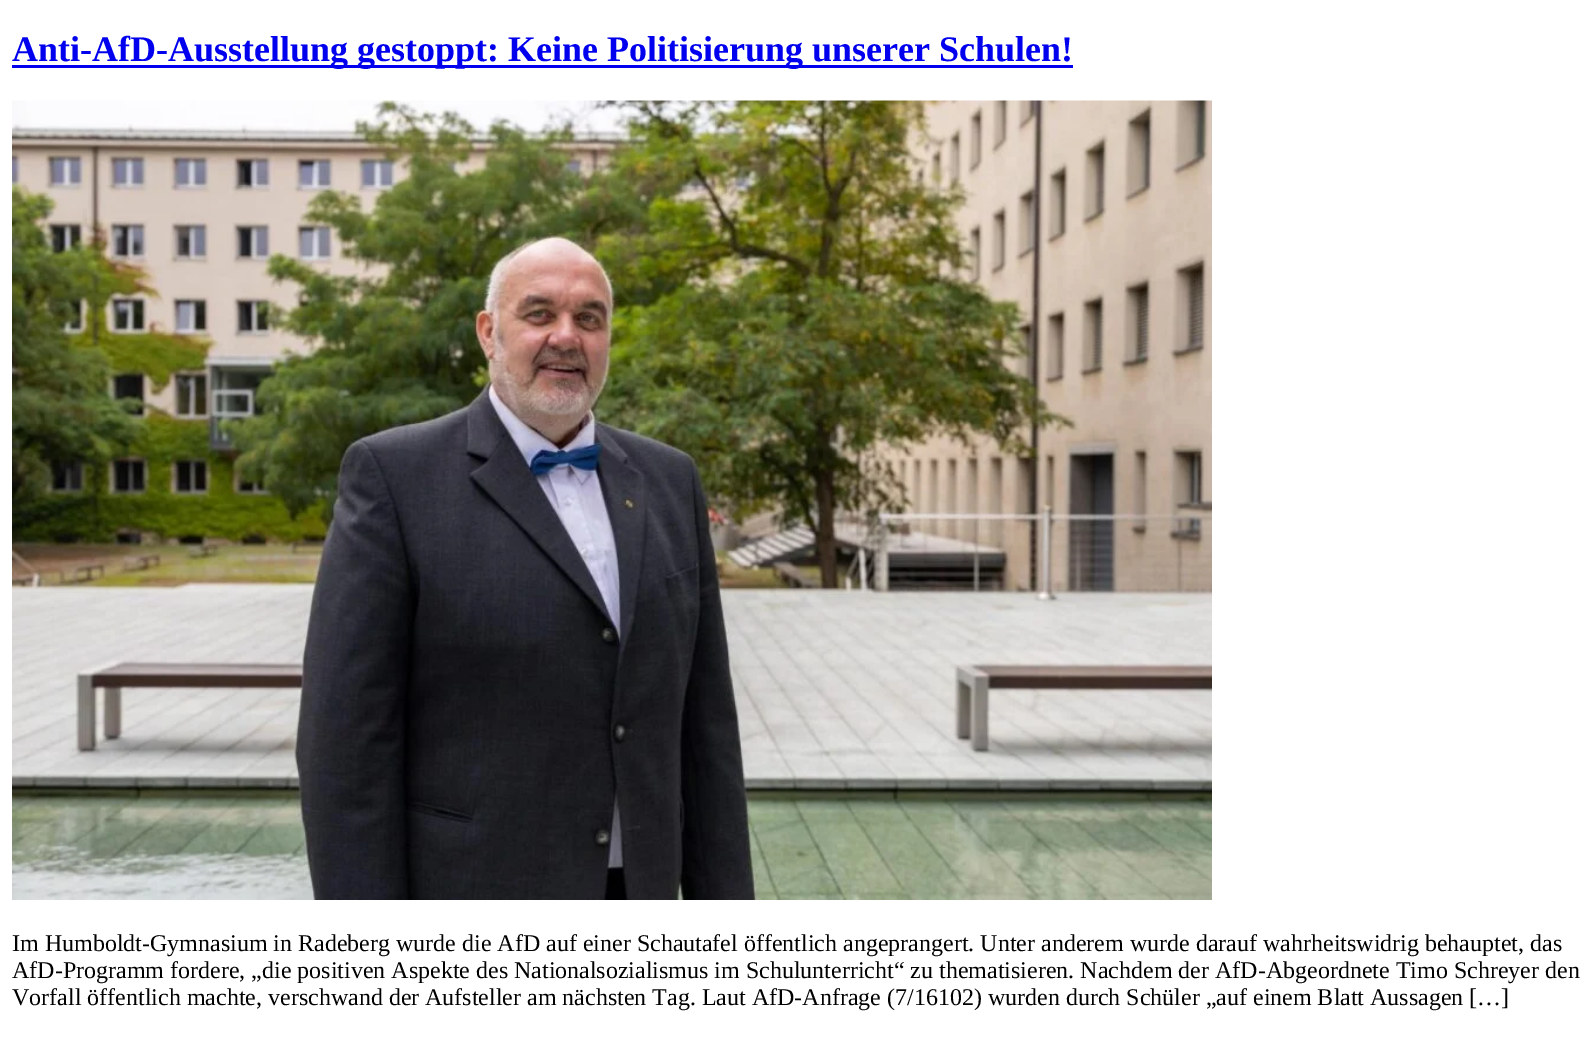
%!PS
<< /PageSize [1591 1053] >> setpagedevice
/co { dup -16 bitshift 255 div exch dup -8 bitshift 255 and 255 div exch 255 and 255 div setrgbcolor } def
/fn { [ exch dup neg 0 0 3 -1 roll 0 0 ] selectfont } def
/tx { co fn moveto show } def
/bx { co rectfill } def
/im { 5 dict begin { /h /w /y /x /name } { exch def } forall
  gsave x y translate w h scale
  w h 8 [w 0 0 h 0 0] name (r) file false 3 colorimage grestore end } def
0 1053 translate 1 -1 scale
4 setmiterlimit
0 0 1591 1053 16#FFFFFF bx
12 65 1061 3 16#0000EE bx
(media/1.raw) 12 100 1200 800 im
(Anti-AfD-Ausstellung gestoppt: Keine Politisierung unserer Schulen!) 12 61 /LiberationSerif-Bold 36 16#0000EE tx
(Im Humboldt-Gymnasium in Radeberg wurde die AfD auf einer Schautafel öffentlich angeprangert. Unter anderem wurde darauf wahrheitswidrig behauptet, das) 12 951 /LiberationSerif-Regular 24 16#000000 tx
(AfD-Programm fordere, „die positiven Aspekte des Nationalsozialismus im Schulunterricht“ zu thematisieren. Nachdem der AfD-Abgeordnete Timo Schreyer den) 12 978 /LiberationSerif-Regular 24 16#000000 tx
(Vorfall öffentlich machte, verschwand der Aufsteller am nächsten Tag. Laut AfD-Anfrage \(7/16102\) wurden durch Schüler „auf einem Blatt Aussagen […]) 12 1005 /LiberationSerif-Regular 24 16#000000 tx
showpage
